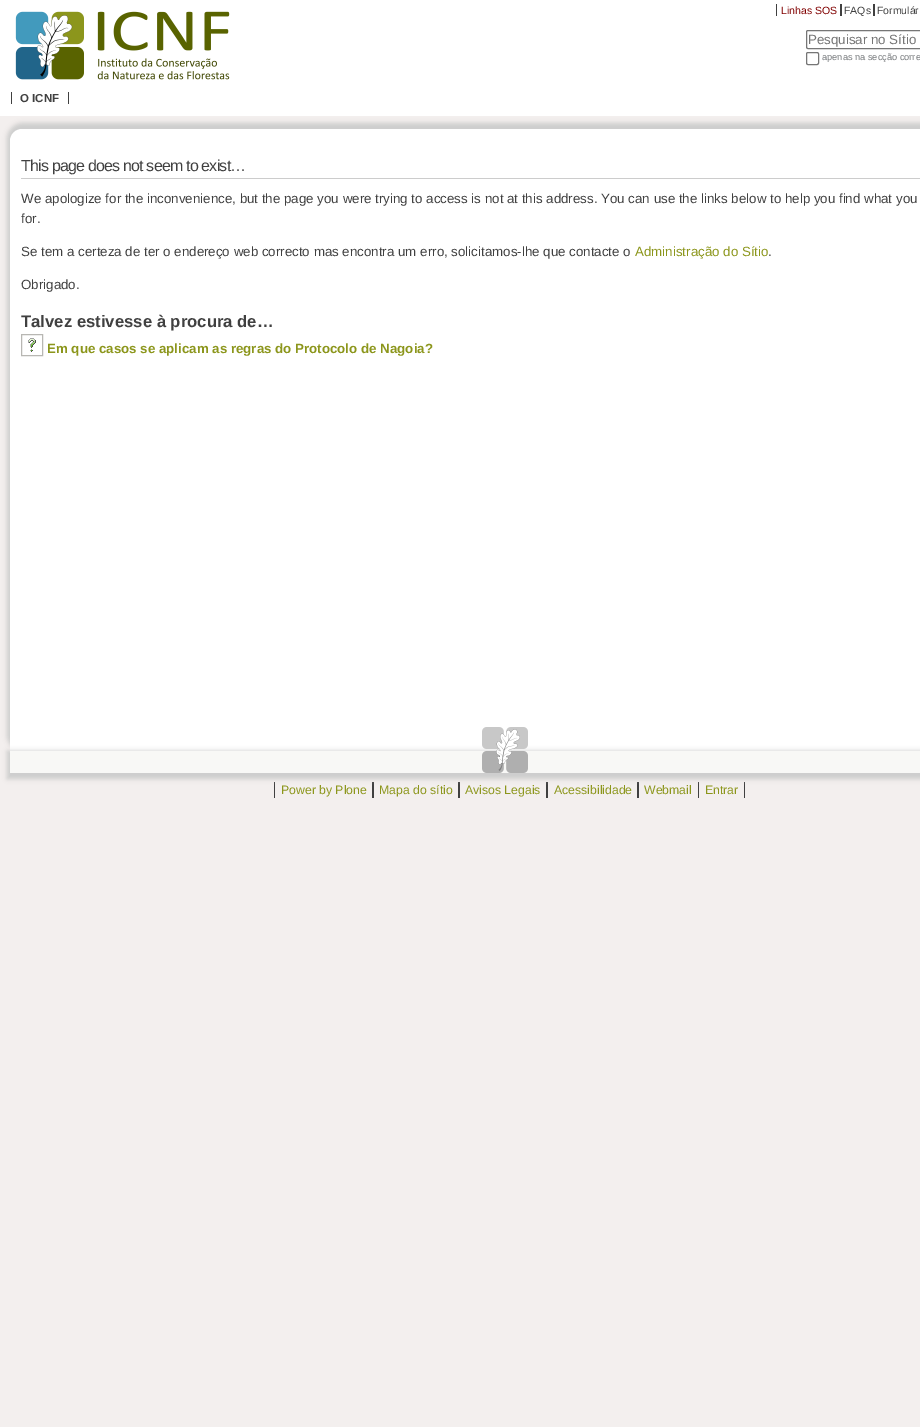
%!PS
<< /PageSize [920 1427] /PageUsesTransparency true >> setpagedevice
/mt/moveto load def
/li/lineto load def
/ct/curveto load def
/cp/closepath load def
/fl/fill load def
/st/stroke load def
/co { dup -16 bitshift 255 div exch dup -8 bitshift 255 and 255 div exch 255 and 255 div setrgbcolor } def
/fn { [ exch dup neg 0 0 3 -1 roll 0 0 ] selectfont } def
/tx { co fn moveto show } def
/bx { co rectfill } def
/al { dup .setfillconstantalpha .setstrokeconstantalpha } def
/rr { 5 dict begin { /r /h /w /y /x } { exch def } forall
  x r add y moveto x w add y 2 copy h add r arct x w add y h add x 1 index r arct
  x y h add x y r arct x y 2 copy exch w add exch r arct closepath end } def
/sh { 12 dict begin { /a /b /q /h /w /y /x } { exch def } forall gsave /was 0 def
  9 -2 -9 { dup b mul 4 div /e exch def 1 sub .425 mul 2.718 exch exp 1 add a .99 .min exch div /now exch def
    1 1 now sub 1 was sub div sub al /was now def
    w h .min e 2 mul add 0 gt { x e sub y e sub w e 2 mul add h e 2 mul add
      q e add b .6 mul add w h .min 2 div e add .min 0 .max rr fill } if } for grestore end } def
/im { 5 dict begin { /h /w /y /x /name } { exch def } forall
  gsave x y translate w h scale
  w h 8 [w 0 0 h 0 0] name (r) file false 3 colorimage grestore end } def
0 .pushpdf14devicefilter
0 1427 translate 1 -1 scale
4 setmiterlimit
0 0 920 1427 16#F3EFEE bx
0 0 920 116 16#FFFFFF bx
(media/1.raw) 15 11 215 69 im
840 4 2 12 16#404040 bx
776 4 1 12 16#404040 bx
873 4 2 12 16#404040 bx
16#767676 co
806.5 30.5 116 18 1.5 rr st
806.5 52.5 12 12 1.5 rr st
68 92 1 12 16#404040 bx
11 92 1 12 16#404040 bx
16#CCCCCC co
7 123 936 628 15 2.5 1 sh
16#FFFFFF co
22 129 mt 920 129 li 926.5 129 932 134.5 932 141 ct 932 751 li 10 751 li 10 141 li 10 134.5 15.5 129 22 129 ct cp fl
21 178 899 1 16#CCCCCC bx
16#B8B7B3 co
21.5 334.5 21 21 rectstroke
(media/2.raw) 28 338 8 14 im
372 782 2 16 16#404040 bx
274 782 1 16 16#404040 bx
458 782 2 16 16#404040 bx
546 782 2 16 16#404040 bx
637 782 2 16 16#404040 bx
698 782 1 16 16#404040 bx
744 782 1 16 16#404040 bx
16#CCCCCC co
7 751 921 28 0 2.5 1 sh
10 751 910 22 16#F8F8F6 bx
(media/3.raw) 482 727 46 46 im
(Linhas SOS) 781 14 /LiberationSans-Regular 10.5 16#800000 tx
(FAQs) 844 14 /LiberationSans-Regular 10.5 16#404040 tx
(Formulár) 877 14 /LiberationSans-Regular 10.5 16#404040 tx
(Pesquisar no Sítio) 808 44 /LiberationSans-Regular 13.33 16#757575 tx
(apenas na secção corre) 822 60 /LiberationSans-Regular 9.25 16#76797C tx
(O ICNF) 20 102 /LiberationSans-Bold 11.5 16#404040 tx
/LiberationSans-Regular 16 fn
21 171 mt -.8 0 (This page does not seem to exist…) ashow
(We apologize for the inconvenience, but the page you were trying to access is not at this address. You can use the links below to help you find what you) 21 203 /LiberationSans-Regular 13.33 16#404040 tx
(for.) 21 223 /LiberationSans-Regular 13.33 16#404040 tx
(Se tem a certeza de ter o endereço web correcto mas encontra um erro, solicitamos-lhe que contacte o) 21 256 /LiberationSans-Regular 13.33 16#404040 tx
(Administração do Sítio) 635 256 /LiberationSans-Regular 13.33 16#8C961C tx
(.) 768 256 /LiberationSans-Regular 13.33 16#404040 tx
(Obrigado.) 21 289 /LiberationSans-Regular 13.33 16#404040 tx
(Talvez estivesse à procura de…) 21 327 /LiberationSans-Bold 16.7 16#404040 tx
(Em que casos se aplicam as regras do Protocolo de Nagoia?) 47 353 /LiberationSans-Bold 13.33 16#8C961C tx
(Power by Plone) 281 794 /LiberationSans-Regular 12.25 16#8C961C tx
(Mapa do sítio) 379 794 /LiberationSans-Regular 12.25 16#8C961C tx
(Avisos Legais) 465 794 /LiberationSans-Regular 12.25 16#8C961C tx
(Acessibilidade) 554 794 /LiberationSans-Regular 12.25 16#8C961C tx
(Webmail) 644 794 /LiberationSans-Regular 12.25 16#8C961C tx
(Entrar) 705 794 /LiberationSans-Regular 12.25 16#8C961C tx
.poppdf14devicefilter showpage
